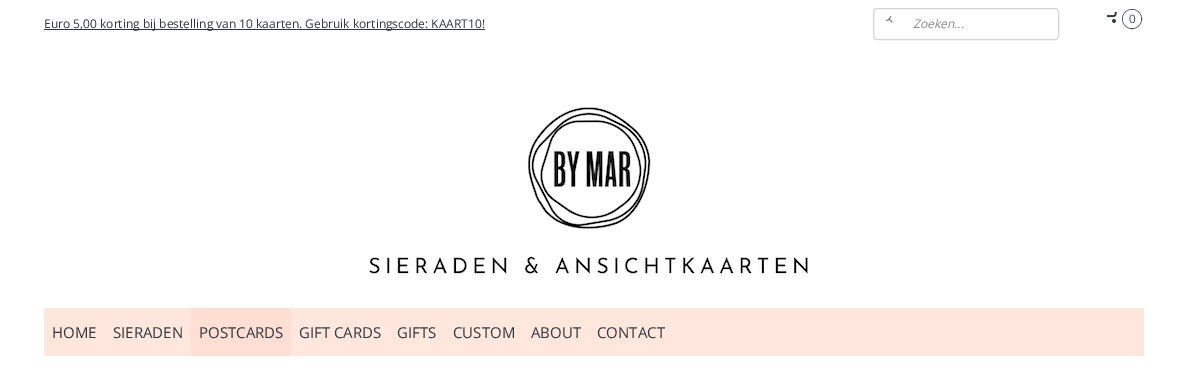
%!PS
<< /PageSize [1188 386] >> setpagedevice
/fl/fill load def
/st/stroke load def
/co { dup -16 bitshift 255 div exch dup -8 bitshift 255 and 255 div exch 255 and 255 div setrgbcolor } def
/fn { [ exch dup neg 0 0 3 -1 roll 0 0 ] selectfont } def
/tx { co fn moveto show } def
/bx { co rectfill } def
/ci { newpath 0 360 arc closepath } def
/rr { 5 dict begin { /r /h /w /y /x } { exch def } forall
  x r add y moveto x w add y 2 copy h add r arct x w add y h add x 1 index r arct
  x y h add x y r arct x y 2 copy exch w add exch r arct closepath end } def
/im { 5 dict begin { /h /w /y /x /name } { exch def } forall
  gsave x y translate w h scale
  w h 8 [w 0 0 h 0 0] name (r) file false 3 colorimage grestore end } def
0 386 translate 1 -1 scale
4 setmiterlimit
0 0 1188 386 16#FFFFFF bx
44 29 441 1 16#333740 bx
16#D3D5D9 co
873.5 8.5 185 31 3.5 rr st
(media/1.raw) 886 16 7 7 im
(media/2.raw) 1107 12 10 11 im
16#575B62 co
1132 19 9.5 ci st
16#FFFFFF co
1132 19 9 ci fl
(media/3.raw) 369 107 439 169 im
44 308 1100 48 16#FFE7DE bx
191 308 100 48 16#FFDED3 bx
(Euro 5,00 korting bij bestelling van 10 kaarten. Gebruik kortingscode: KAART10!) 44 28 /OpenSans-Regular 12 16#333740 tx
(Zoeken...) 913 28 /OpenSans-Italic 12 16#898C91 tx
(0) 1129 23 /LiberationSans-Regular 12 16#575B62 tx
(HOME) 52 338 /OpenSans-Regular 15 16#333740 tx
(SIERADEN) 113 338 /OpenSans-Regular 15 16#333740 tx
(POSTCARDS) 199 338 /OpenSans-Regular 15 16#333740 tx
(GIFT CARDS) 299 338 /OpenSans-Regular 15 16#333740 tx
(GIFTS) 397 338 /OpenSans-Regular 15 16#333740 tx
(CUSTOM) 453 338 /OpenSans-Regular 15 16#333740 tx
(ABOUT) 531 338 /OpenSans-Regular 15 16#333740 tx
(CONTACT) 597 338 /OpenSans-Regular 15 16#333740 tx
showpage
